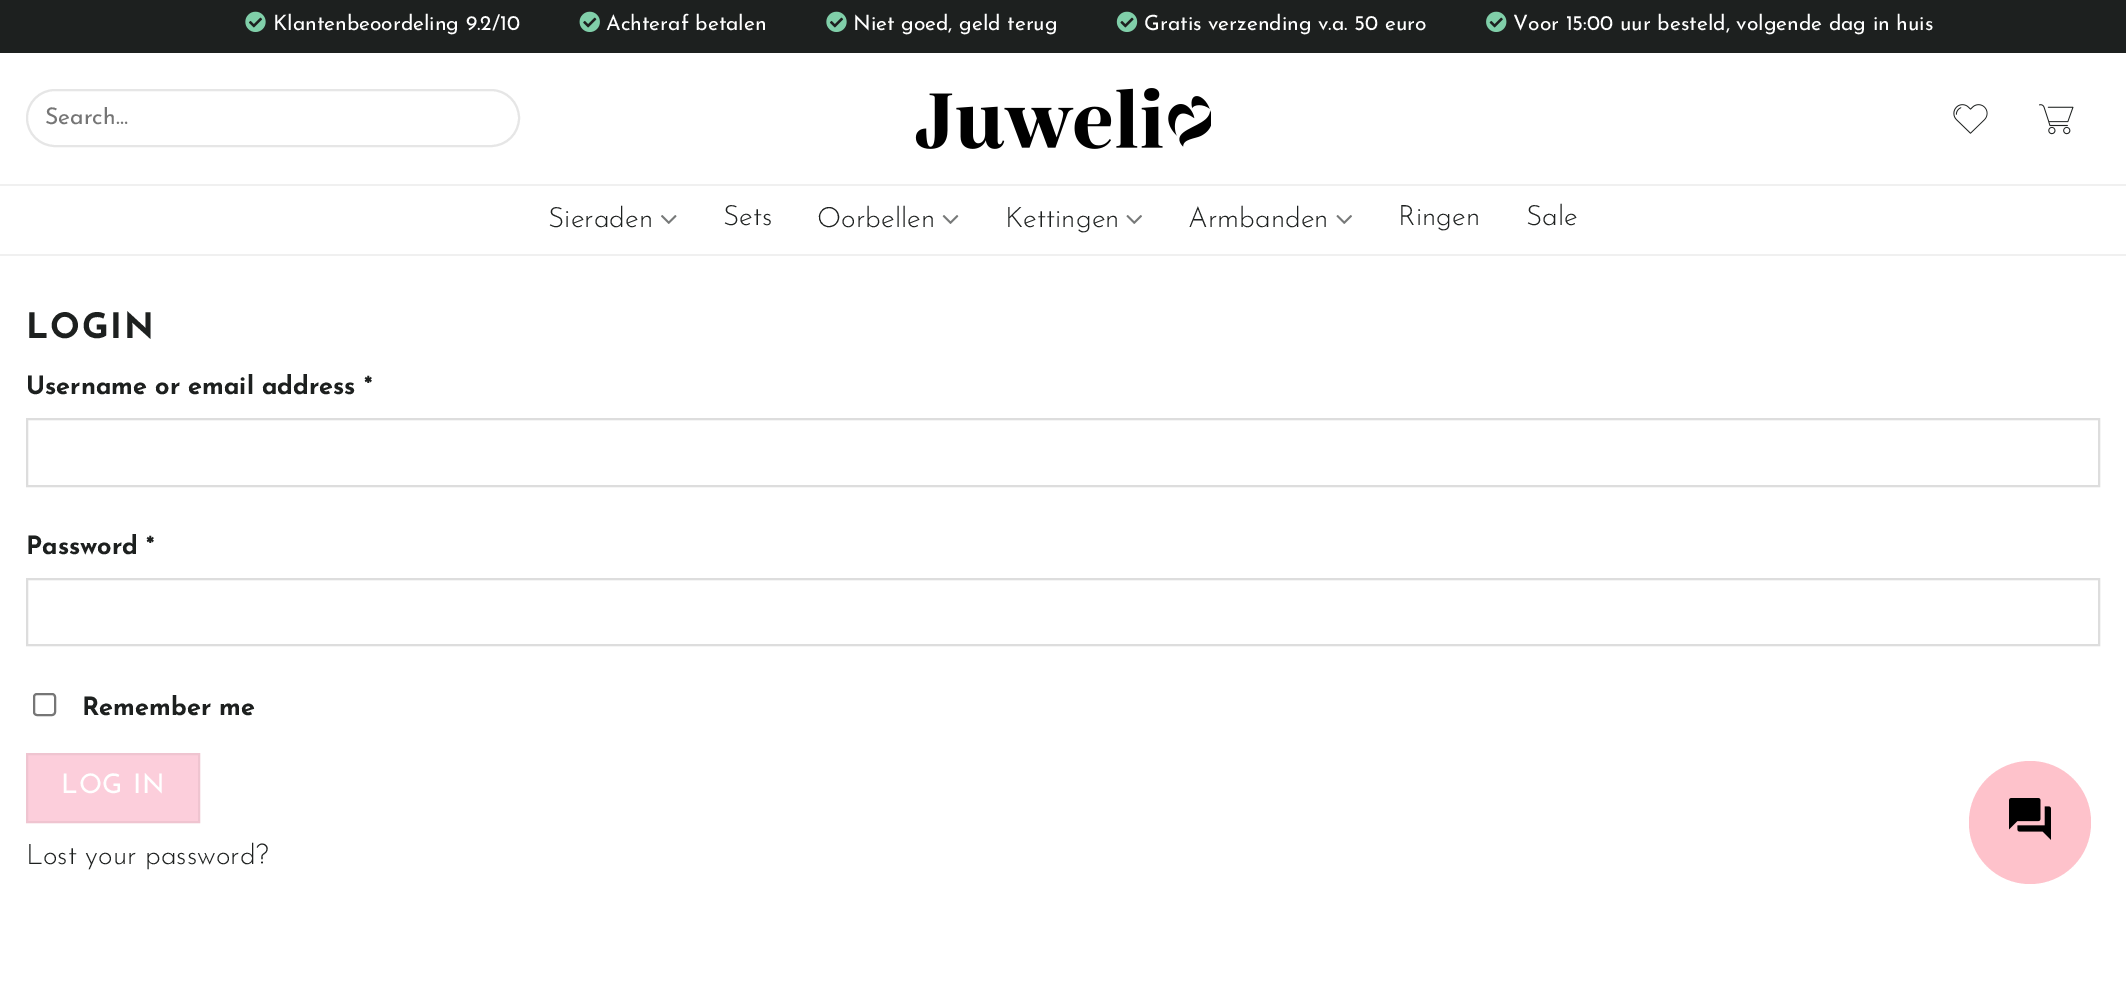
%!PS
<< /PageSize [2126 1005] >> setpagedevice
/mt/moveto load def
/li/lineto load def
/cp/closepath load def
/fl/fill load def
/st/stroke load def
/gs/gsave load def
/gr/grestore load def
/lw/setlinewidth load def
/co { dup -16 bitshift 255 div exch dup -8 bitshift 255 and 255 div exch 255 and 255 div setrgbcolor } def
/fn { [ exch dup neg 0 0 3 -1 roll 0 0 ] selectfont } def
/tx { co fn moveto show } def
/bx { co rectfill } def
/rr { 5 dict begin { /r /h /w /y /x } { exch def } forall
  x r add y moveto x w add y 2 copy h add r arct x w add y h add x 1 index r arct
  x y h add x y r arct x y 2 copy exch w add exch r arct closepath end } def
/im { 5 dict begin { /h /w /y /x /name } { exch def } forall
  gsave x y translate w h scale
  w h 8 [w 0 0 h 0 0] name (r) file false 3 colorimage grestore end } def
0 1005 translate 1 -1 scale
4 setmiterlimit
0 0 2126 1005 16#FFFFFF bx
0 0 2126 53 16#1D201F bx
(media/1.raw) 245 11 21 21 im
(media/2.raw) 579 11 21 21 im
(media/1.raw) 826 11 21 21 im
(media/3.raw) 1116 11 22 21 im
(media/4.raw) 1486 11 21 21 im
16#E6E6E6 co
2 lw
27 90 492 56 28 rr st
(media/5.raw) 915 88 296 61 im
(media/6.raw) 1953 104 35 30 im
(media/7.raw) 2039 104 35 31 im
0 184 2126 2 16#F0F0F0 bx
0 254 2126 2 16#F0F0F0 bx
(media/8.raw) 661 215 16 9 im
(media/9.raw) 942 215 17 9 im
(media/10.raw) 1126 215 16 9 im
(media/10.raw) 1336 215 16 9 im
16#DDDDDD co
27 419 2072 67 rectstroke
27 579 2072 66 rectstroke
16#767676 co
34 694 21 21 3 rr st
16#FCCEDB co
27 754 mt 199 754 li 199 822 li 27 822 li cp gs fl gr
16#EFC4D0 co
st
16#FEC2CB co
1969 761 122 123 61 rr fl
(media/11.raw) 2009 798 42 42 im
(Klantenbeoordeling 9.2/10) 273 30 /JosefinSans-Regular 21 16#FFFFFF tx
(Achteraf betalen) 606 30 /JosefinSans-Regular 21 16#FFFFFF tx
(Niet goed, geld terug) 853 30 /JosefinSans-Regular 21 16#FFFFFF tx
(Gratis verzending v.a. 50 euro) 1144 30 /JosefinSans-Regular 21 16#FFFFFF tx
(Voor 15:00 uur besteld, volgende dag in huis) 1513 30 /JosefinSans-Regular 21 16#FFFFFF tx
gs
46 107 448 23 rectclip
(Search…) 45 124 /JosefinSans-Regular 23 16#757575 tx
gr
(Sieraden) 548 227 /JosefinSans-Light 28 16#1D201F tx
(Sets) 723 225 /JosefinSans-Light 28 16#1D201F tx
(Oorbellen) 817 227 /JosefinSans-Light 28 16#1D201F tx
(Kettingen) 1005 227 /JosefinSans-Light 28 16#1D201F tx
(Armbanden) 1188 227 /JosefinSans-Light 28 16#1D201F tx
(Ringen) 1398 225 /JosefinSans-Light 28 16#1D201F tx
(Sale) 1526 225 /JosefinSans-Light 28 16#1D201F tx
/JosefinSans-Bold 35 fn
26 338 mt 1.75 0 (LOGIN) ashow
(Username or email address *) 26 394 /JosefinSans-Bold 25.25 16#1D201F tx
(Password *) 26 554 /JosefinSans-Bold 25.25 16#1D201F tx
(Remember me) 82 715 /JosefinSans-Bold 25.25 16#1D201F tx
/JosefinSans-Regular 27 fn
16#FFFFFF co
61 793 mt .75 0 (LOG IN) ashow
(Lost your password?) 26 864 /JosefinSans-Light 28 16#1D201F tx
showpage
